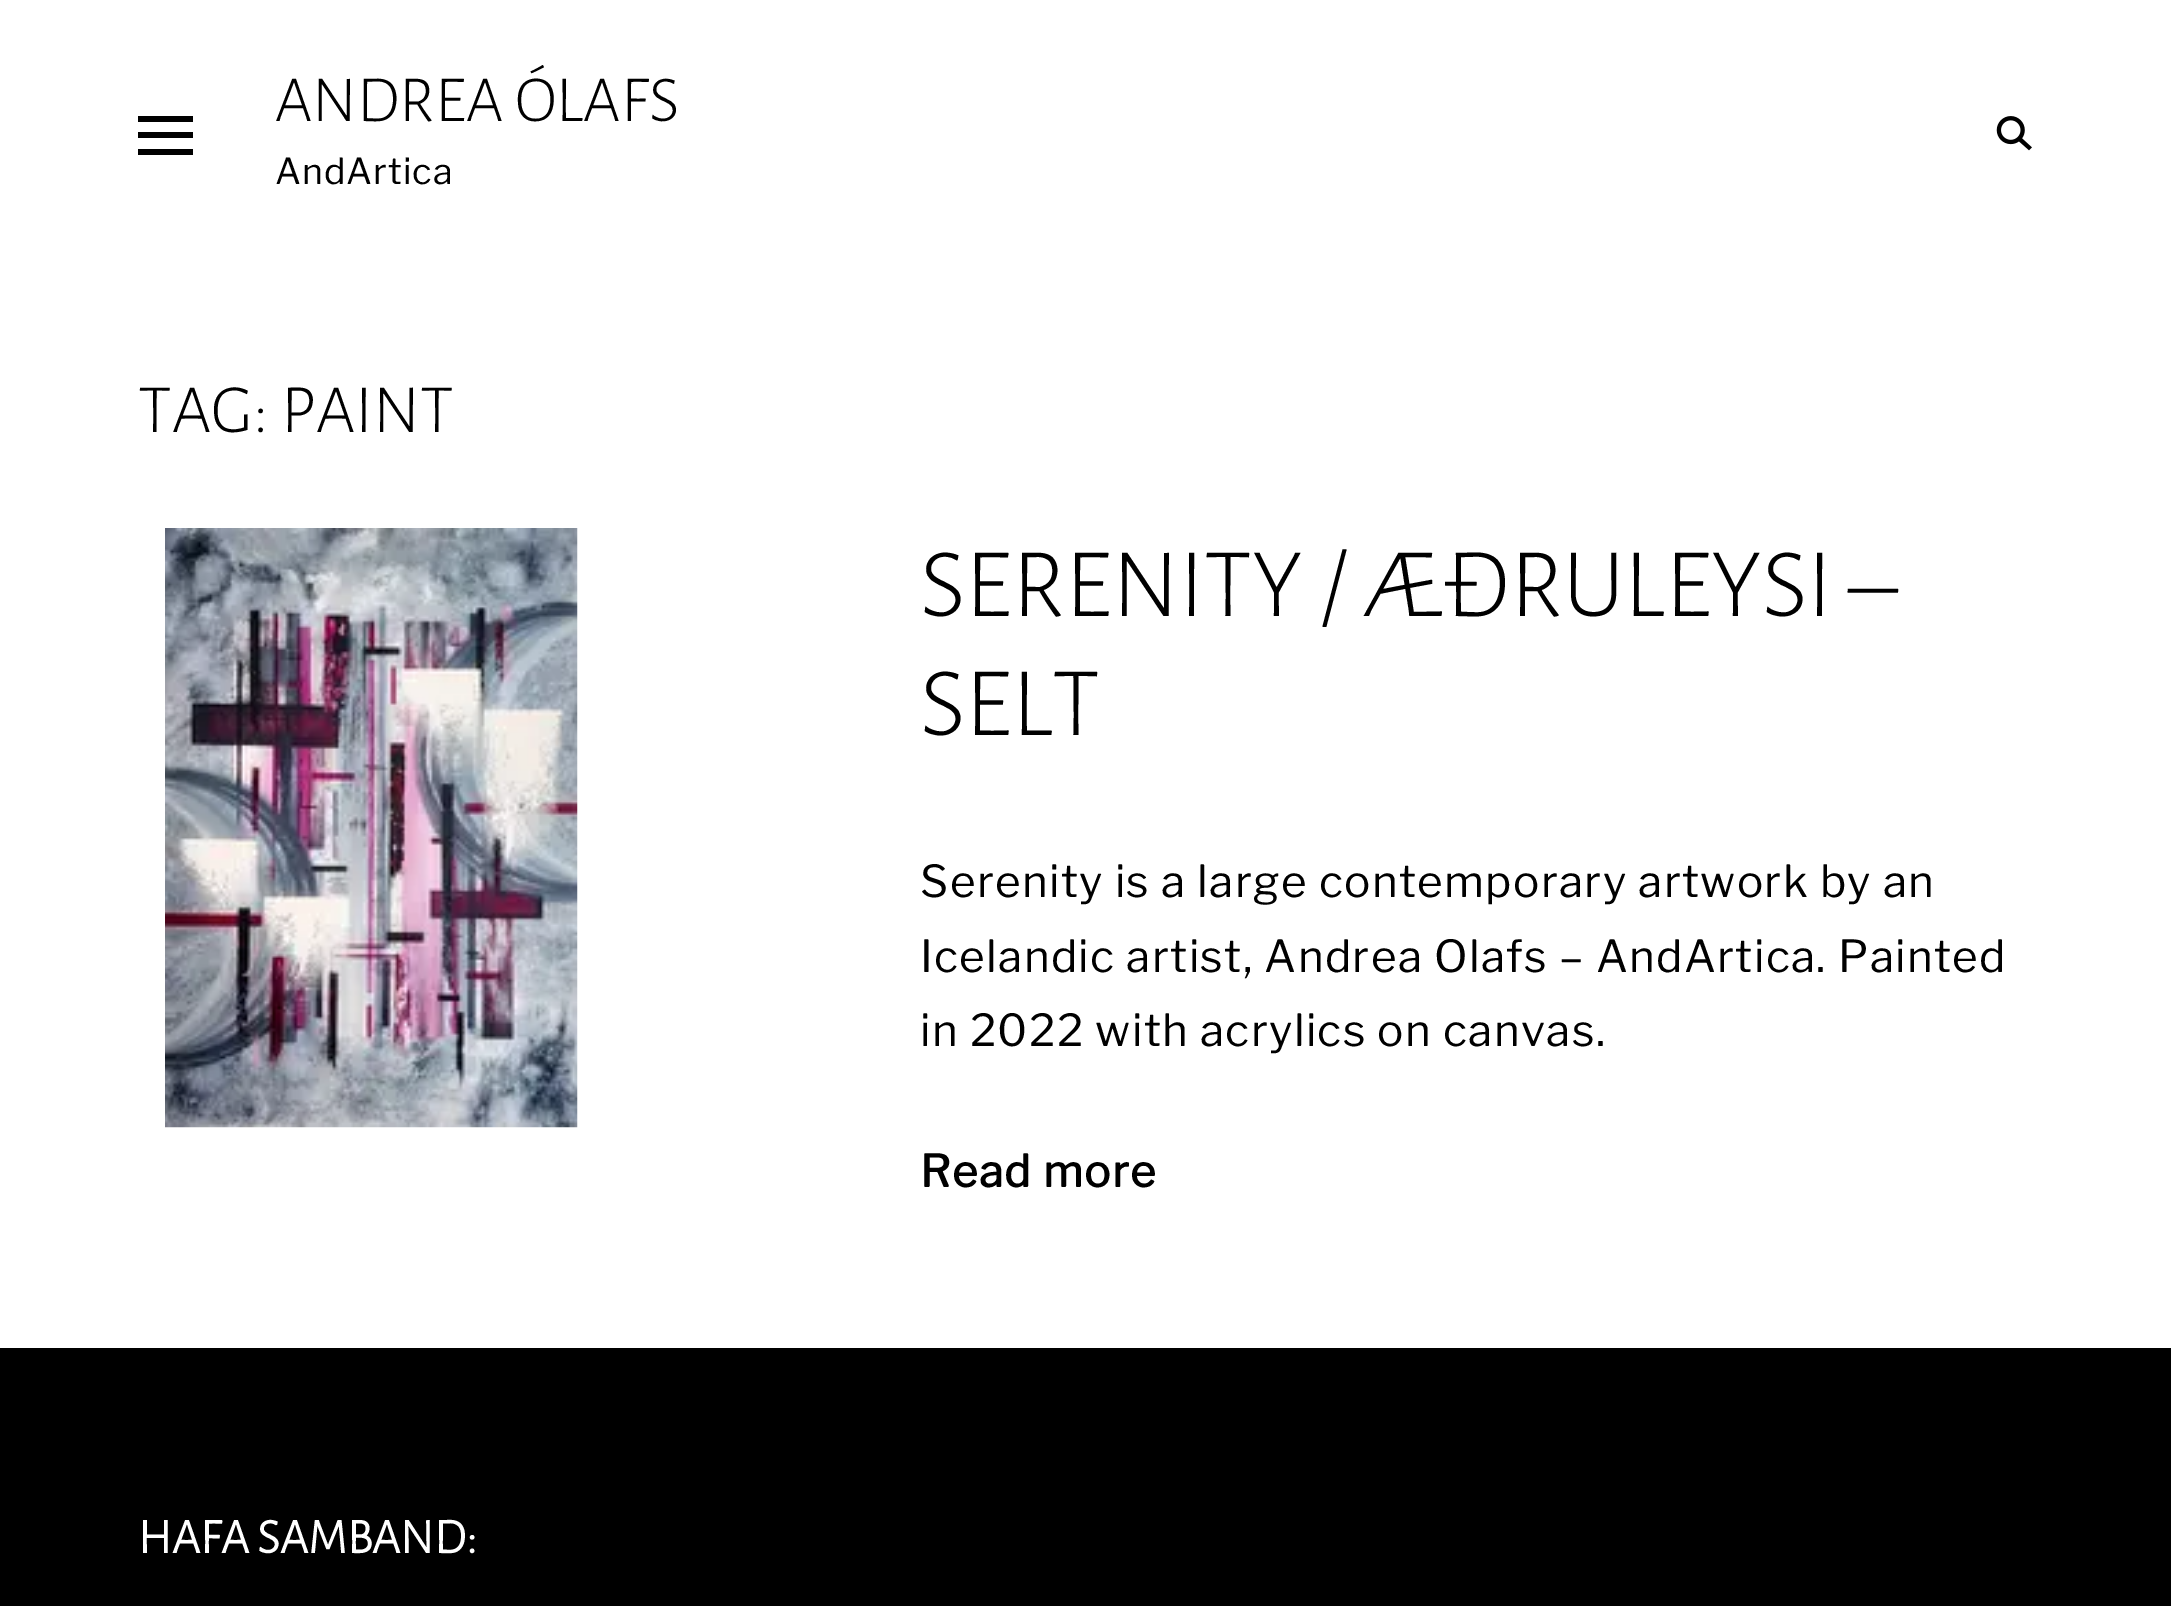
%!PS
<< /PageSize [2171 1606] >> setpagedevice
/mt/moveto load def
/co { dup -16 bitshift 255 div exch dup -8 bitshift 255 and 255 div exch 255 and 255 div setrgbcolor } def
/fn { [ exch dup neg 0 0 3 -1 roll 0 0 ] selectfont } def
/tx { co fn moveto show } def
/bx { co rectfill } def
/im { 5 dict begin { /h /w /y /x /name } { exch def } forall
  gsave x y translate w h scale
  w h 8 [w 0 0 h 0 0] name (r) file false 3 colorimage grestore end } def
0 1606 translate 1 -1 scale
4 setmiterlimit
0 0 2171 1606 16#FFFFFF bx
138 132 55 6 16#000000 bx
138 116 55 6 16#000000 bx
138 149 55 6 16#000000 bx
(media/1.raw) 1996 116 36 35 im
(media/2.raw) 165 528 413 600 im
0 1348 2171 258 16#000000 bx
(ANDREA ÓLAFS) 275 121 /AlegreyaSans-Light 66 16#000000 tx
/LibreFranklin-Regular 35.75 fn
275 184 mt 1 0 (AndArtica) ashow
(TAG: PAINT) 138 432 /AlegreyaSans-Light 69.5 16#000000 tx
(SERENITY / ÆÐRULEYSI –) 920 616 /AlegreyaSans-Light 99 16#000000 tx
(SELT) 920 735 /AlegreyaSans-Light 99 16#000000 tx
/LibreFranklin-Regular 44 fn
920 897 mt 1.38 0 (Serenity is a large contemporary artwork by an) ashow
920 972 mt 1.38 0 (Icelandic artist, Andrea Olafs – AndArtica. Painted) ashow
920 1046 mt 1.38 0 (in 2022 with acrylics on canvas.) ashow
/LibreFranklin-Bold 44 fn
920 1187 mt 1.38 0 (Read more) ashow
(HAFA SAMBAND:) 138 1553 /AlegreyaSans-Bold 49.5 16#FFFFFF tx
showpage
